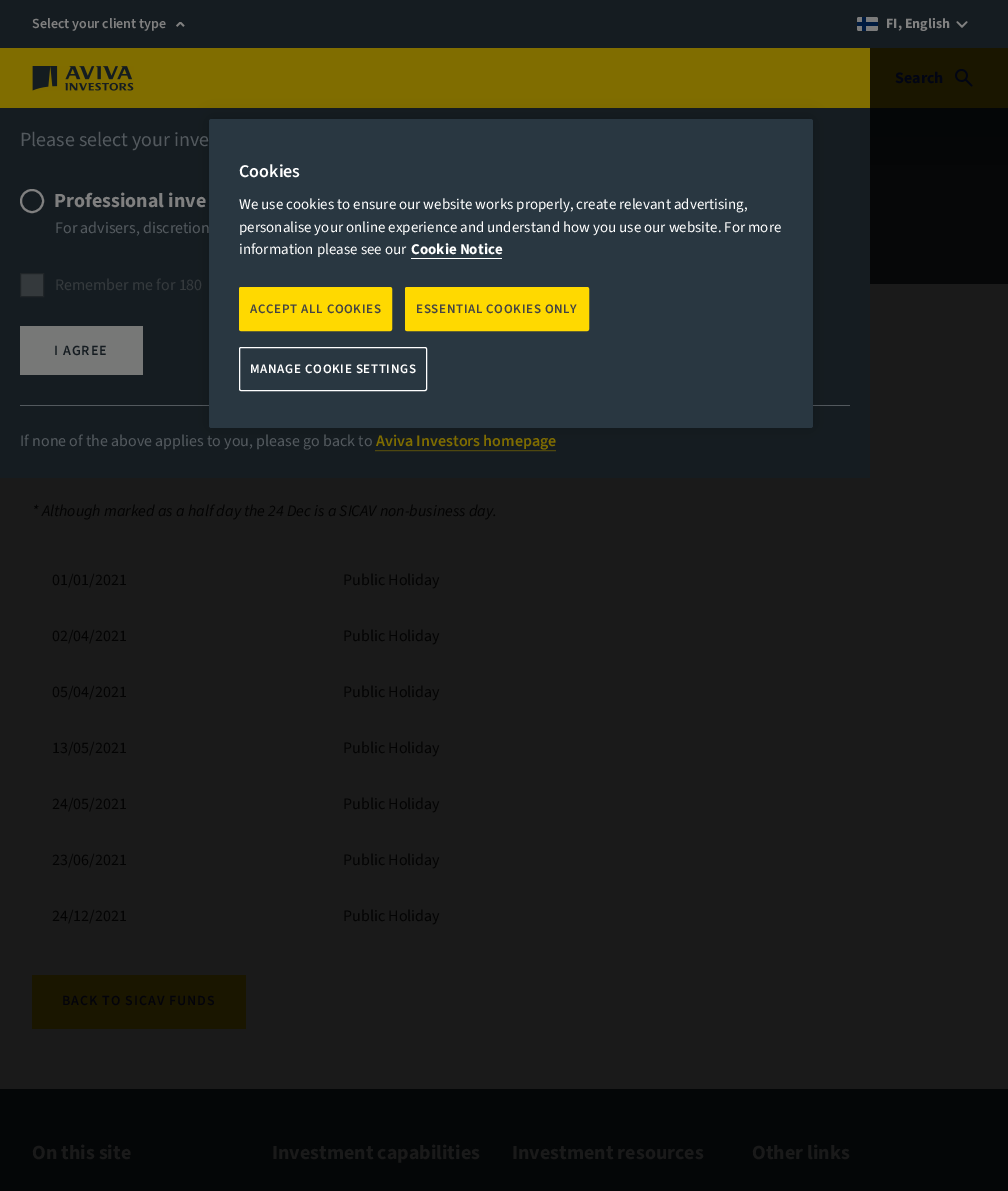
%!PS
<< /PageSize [1008 1191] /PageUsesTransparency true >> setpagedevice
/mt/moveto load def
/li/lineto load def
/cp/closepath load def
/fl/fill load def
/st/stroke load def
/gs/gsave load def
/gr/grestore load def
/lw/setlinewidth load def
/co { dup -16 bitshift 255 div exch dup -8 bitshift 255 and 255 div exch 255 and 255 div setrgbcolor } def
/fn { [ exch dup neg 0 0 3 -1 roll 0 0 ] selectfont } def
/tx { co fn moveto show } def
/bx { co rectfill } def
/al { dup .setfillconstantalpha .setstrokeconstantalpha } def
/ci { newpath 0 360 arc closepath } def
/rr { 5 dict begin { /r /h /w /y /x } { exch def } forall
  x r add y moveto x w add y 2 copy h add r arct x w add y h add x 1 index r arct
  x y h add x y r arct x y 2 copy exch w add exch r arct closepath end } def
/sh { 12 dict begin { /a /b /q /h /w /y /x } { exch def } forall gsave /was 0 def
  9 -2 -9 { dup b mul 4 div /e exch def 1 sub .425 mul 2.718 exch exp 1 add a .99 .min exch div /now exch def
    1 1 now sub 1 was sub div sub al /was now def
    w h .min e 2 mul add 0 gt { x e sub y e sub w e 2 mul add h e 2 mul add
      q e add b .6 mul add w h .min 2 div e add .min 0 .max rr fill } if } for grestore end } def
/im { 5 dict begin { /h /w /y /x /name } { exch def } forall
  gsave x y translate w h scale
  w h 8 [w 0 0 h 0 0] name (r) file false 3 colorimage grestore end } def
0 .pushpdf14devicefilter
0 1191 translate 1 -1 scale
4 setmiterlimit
0 0 1008 1191 16#1A1A1A bx
0 0 1008 48 16#151C21 bx
(media/1.raw) 176 22 9 5 im
16#7B7B7B co
857 17 21 14 2 rr fl
857 22 21 4 16#001B40 bx
862 17 4 14 16#001B40 bx
(media/2.raw) 956 21 12 7 im
870 48 138 60 16#1A1600 bx
(media/3.raw) 955 69 18 18 im
0 108 870 370 16#151C21 bx
0 48 870 60 16#806D00 bx
(media/4.raw) 32 66 102 25 im
20 405 830 1 16#53595E bx
16#808080 co
2 lw
32 201 11 ci st
16#34393C co
20.5 273.5 mt 43.5 273.5 li 43.5 296.5 li 20.5 296.5 li cp gs fl gr
16#202528 co
1 lw
st
20 326 123 49 16#777877 bx
16#806D00 co
[1 1] 0 setdash
375.5 450.5 mt 556 450.5 li st
870 166 138 118 16#060708 bx
gs 870 108 mt 1008 108 li 1008 166 li 870 166 li cp clip newpath
<< /ShadingType 2 /ColorSpace /DeviceRGB /Coords [504 108 504 166] /Extend [true true] /Function << /FunctionType 2 /Domain [0 1] /C0 [.016 .024 .027] /C1 [.024 .027 .031] /N 1 >> >> shfill gr
32 975 214 54 16#1A1600 bx
0 1089 1008 102 16#040607 bx
16#000000 co
209 119 604 309 2.5 9 .2 sh
16#293741 co
209 119 604 309 2.5 rr fl
411 258 91 1 16#FFFFFF bx
16#FFD900 co
239.5 287.5 152 43 1.5 rr gs fl gr
[] 0 setdash
st
405.5 287.5 183 43 1.5 rr gs fl gr
st
16#FFFFFF co
239.5 347.5 187 43 1.5 rr st
(Select your client type) 32 28 /SourceSans3-SemiBold 14 16#808080 tx
(FI, English) 886 28 /SourceSans3-Bold 14 16#808080 tx
(Search) 895 83 /SourceSans3-Bold 16 16#020513 tx
(Please select your inve) 20 146 /SourceSans3-Regular 20 16#53595E tx
(Professional inve) 54 207 /SourceSans3-Bold 20 16#808080 tx
(For advisers, discretion) 55 233 /SourceSans3-Regular 16 16#53595E tx
(Remember me for 180) 55 290 /SourceSans3-Regular 16 16#353A3D tx
/SourceSans3-SemiBold 14 fn
16#151C21 co
54 355 mt 1 0 (I AGREE) ashow
(If none of the above applies to you, please go back to) 20 446 /SourceSans3-Regular 16 16#53595E tx
(Aviva Investors homepage) 376 446 /SourceSans3-SemiBold 16 16#806D00 tx
(* Although marked as a half day the 24 Dec is a SICAV non-business day.) 32 516 /SourceSans3-Italic 16 16#030303 tx
(01/01/2021) 52 585 /SourceSans3-Regular 16 16#030303 tx
(Public Holiday) 343 585 /SourceSans3-Regular 16 16#030303 tx
(02/04/2021) 52 641 /SourceSans3-Regular 16 16#030303 tx
(Public Holiday) 343 641 /SourceSans3-Regular 16 16#030303 tx
(05/04/2021) 52 697 /SourceSans3-Regular 16 16#030303 tx
(Public Holiday) 343 697 /SourceSans3-Regular 16 16#030303 tx
(13/05/2021) 52 753 /SourceSans3-Regular 16 16#030303 tx
(Public Holiday) 343 753 /SourceSans3-Regular 16 16#030303 tx
(24/05/2021) 52 809 /SourceSans3-Regular 16 16#030303 tx
(Public Holiday) 343 809 /SourceSans3-Regular 16 16#030303 tx
(23/06/2021) 52 865 /SourceSans3-Regular 16 16#030303 tx
(Public Holiday) 343 865 /SourceSans3-Regular 16 16#030303 tx
(24/12/2021) 52 921 /SourceSans3-Regular 16 16#030303 tx
(Public Holiday) 343 921 /SourceSans3-Regular 16 16#030303 tx
/SourceSans3-SemiBold 14 fn
16#03030A co
62 1005 mt 1 0 (BACK TO SICAV FUNDS) ashow
(On this site) 32 1159 /SourceSans3-Bold 20 16#1A1A1A tx
(Investment capabilities) 272 1159 /SourceSans3-Bold 20 16#1A1A1A tx
(Investment resources) 512 1159 /SourceSans3-Bold 20 16#1A1A1A tx
(Other links) 752 1159 /SourceSans3-Bold 20 16#1A1A1A tx
(Cookies) 239 177 /SourceSans3-SemiBold 18 16#FFFFFF tx
(We use cookies to ensure our website works properly, create relevant advertising,) 239 209 /SourceSans3-Regular 15 16#FFFFFF tx
(personalise your online experience and understand how you use our website. For more) 239 232 /SourceSans3-Regular 15 16#FFFFFF tx
(information please see our) 239 254 /SourceSans3-Regular 15 16#FFFFFF tx
(Cookie Notice) 411 254 /SourceSans3-Bold 15 16#FFFFFF tx
/SourceSans3-SemiBold 13 fn
16#444444 co
250 313 mt .65 0 (ACCEPT ALL COOKIES) ashow
416 313 mt .65 0 (ESSENTIAL COOKIES ONLY) ashow
16#FFFFFF co
250 373 mt .65 0 (MANAGE COOKIE SETTINGS) ashow
.poppdf14devicefilter showpage
